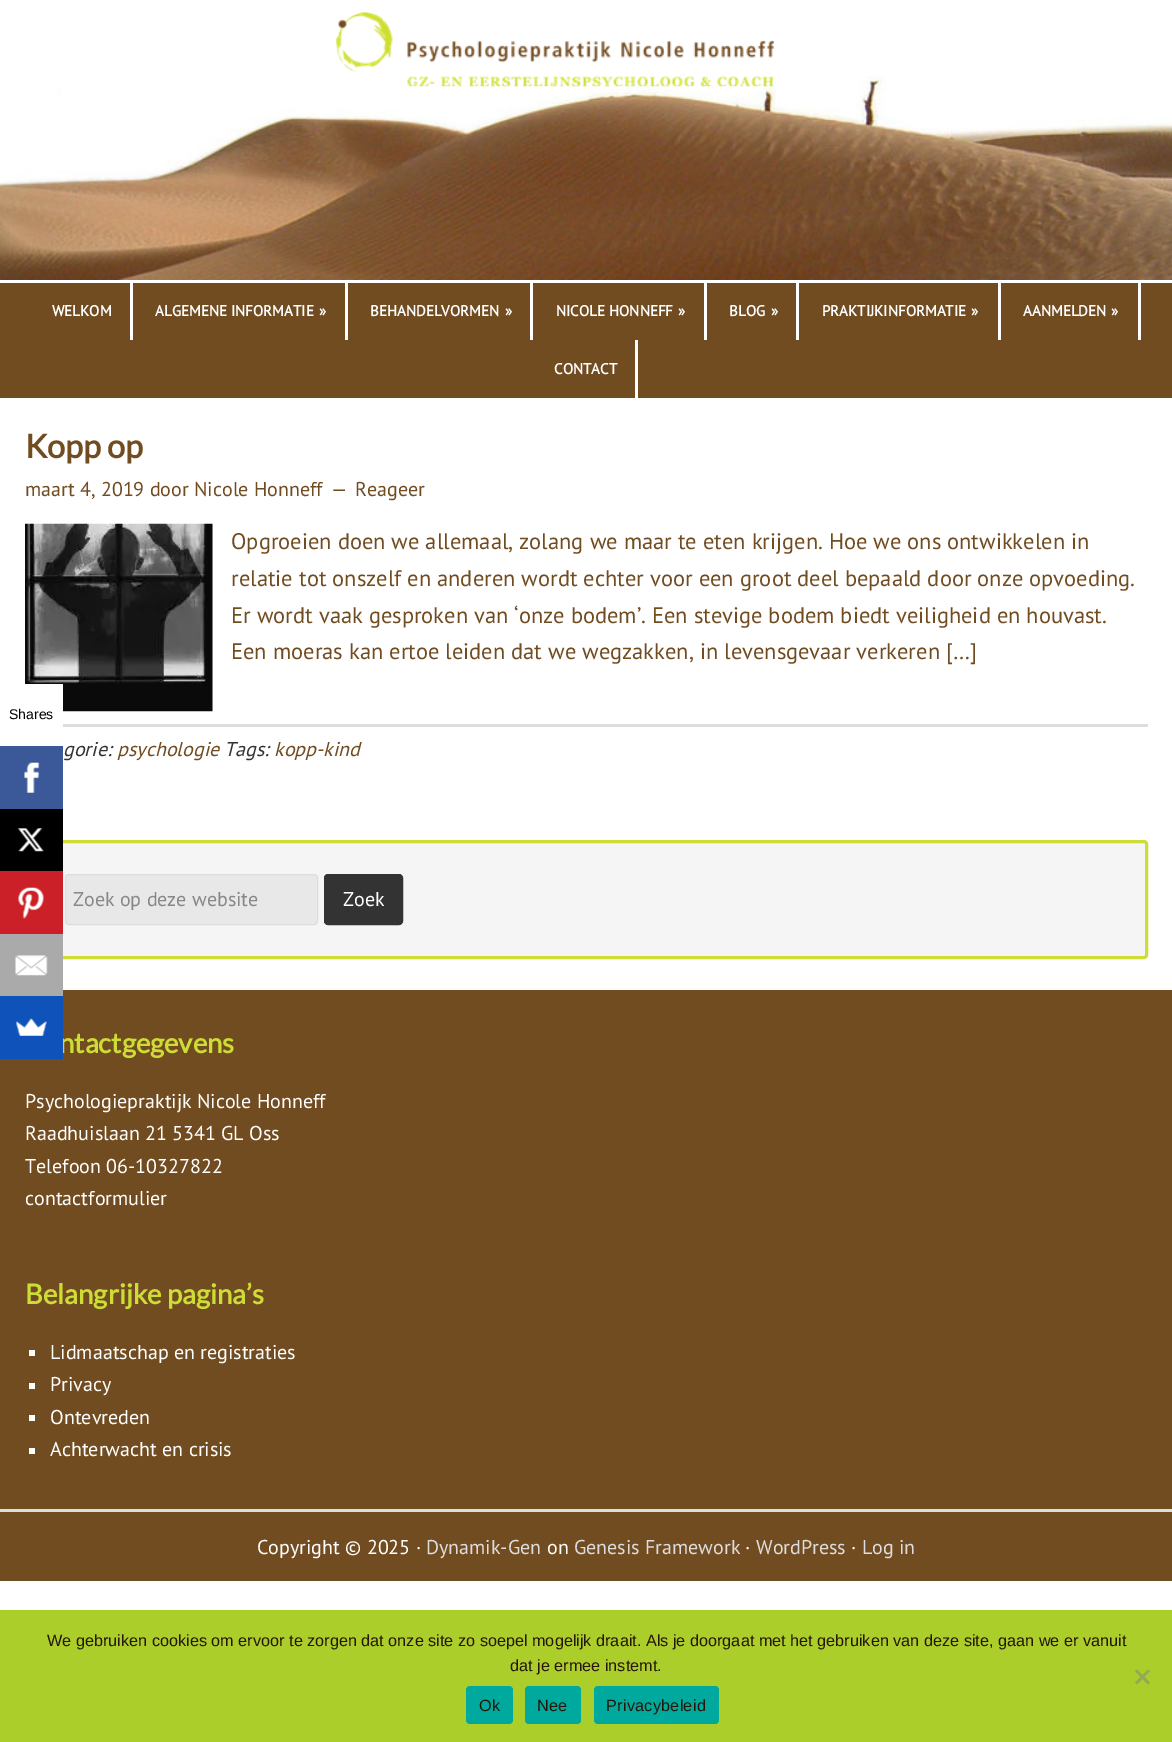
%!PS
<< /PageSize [1172 1742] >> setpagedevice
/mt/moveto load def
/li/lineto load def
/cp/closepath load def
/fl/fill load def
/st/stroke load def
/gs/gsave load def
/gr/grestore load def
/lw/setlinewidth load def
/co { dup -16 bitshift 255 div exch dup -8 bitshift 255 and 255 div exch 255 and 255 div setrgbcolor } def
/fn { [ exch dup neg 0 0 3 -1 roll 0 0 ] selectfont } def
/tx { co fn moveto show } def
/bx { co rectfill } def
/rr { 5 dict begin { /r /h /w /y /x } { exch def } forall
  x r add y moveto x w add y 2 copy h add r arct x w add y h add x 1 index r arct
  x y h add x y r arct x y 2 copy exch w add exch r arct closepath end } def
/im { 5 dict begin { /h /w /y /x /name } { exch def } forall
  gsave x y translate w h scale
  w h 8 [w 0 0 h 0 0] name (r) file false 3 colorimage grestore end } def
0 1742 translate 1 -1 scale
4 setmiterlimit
0 0 1172 1742 16#FFFFFF bx
(media/1.raw) 0 76 1172 204 im
(media/2.raw) 336 12 438 75 im
0 283 1172 115 16#724C21 bx
130 283 3 57 16#FFFFFF bx
345 283 3 57 16#FFFFFF bx
530 283 3 57 16#FFFFFF bx
704 283 3 57 16#FFFFFF bx
796 283 3 57 16#FFFFFF bx
998 283 3 57 16#FFFFFF bx
1138 283 3 57 16#FFFFFF bx
635 340 3 58 16#FFFFFF bx
212 524 1 187 16#F5F5F5 bx
(media/3.raw) 25 523 188 189 im
63 724 1085 3 16#DDDDDD bx
16#F5F5F5 co
26.5 841.5 1120 116 2.5 rr gs fl gr
16#CDDD35 co
3 lw
st
16#E8E8E8 co
65.5 874.5 252 50 3.5 rr gs fl gr
16#DDDDDD co
1 lw
st
16#333333 co
324.5 874.5 78 50 3.5 rr gs fl gr
st
0 990 1172 519 16#724C21 bx
29 1350 6 6 16#FFFFFF bx
29 1383 6 6 16#FFFFFF bx
29 1415 6 6 16#FFFFFF bx
29 1448 6 6 16#FFFFFF bx
0 1512 1172 69 16#724C21 bx
0 1509 1172 3 16#DDDDDD bx
25 684 38 28 16#FFFFFF bx
0 746 63 63 16#3B5998 bx
(media/4.raw) 24 762 16 31 im
0 809 63 62 16#000000 bx
(media/5.raw) 17 828 27 24 im
0 871 63 63 16#CB2027 bx
(media/6.raw) 18 887 26 32 im
0 934 63 62 16#AAAAAA bx
(media/7.raw) 15 955 33 21 im
0 1610 1172 132 16#ABCE2B bx
16#96A756 co
1148 1669.5 mt 1150 1671 li 1137 1684.5 li 1135 1682.5 li cp fl
1135 1671 mt 1137 1669.5 li 1150 1682.5 li 1148 1684.5 li cp fl
16#00A99D co
466 1686 47 38 4 rr fl
525 1686 56 38 4 rr fl
594 1686 125 38 4 rr fl
(WELKOM) 52 316 /PTSans-Bold 15 16#FFFFFF tx
(ALGEMENE INFORMATIE) 155 316 /PTSans-Bold 15 16#FFFFFF tx
(») 319 316 /PTSans-Bold 15 16#FFFFFF tx
(BEHANDELVORMEN) 370 316 /PTSans-Bold 15 16#FFFFFF tx
(») 505 316 /PTSans-Bold 15 16#FFFFFF tx
(NICOLE HONNEFF) 556 316 /PTSans-Bold 15 16#FFFFFF tx
(») 678 316 /PTSans-Bold 15 16#FFFFFF tx
(BLOG) 729 316 /PTSans-Bold 15 16#FFFFFF tx
(») 771 316 /PTSans-Bold 15 16#FFFFFF tx
(PRAKTIJKINFORMATIE) 822 316 /PTSans-Bold 15 16#FFFFFF tx
(») 971 316 /PTSans-Bold 15 16#FFFFFF tx
(AANMELDEN) 1023 316 /PTSans-Bold 15 16#FFFFFF tx
(») 1111 316 /PTSans-Bold 15 16#FFFFFF tx
(CONTACT) 554 374 /PTSans-Bold 15 16#FFFFFF tx
(Kopp op) 25 458 /Lato-Bold 32.5 16#724C21 tx
(maart 4, 2019 door Nicole Honneff) 25 496 /PTSans-Regular 20 16#724C21 tx
(—) 331 496 /PTSans-Regular 20 16#724C21 tx
(Reageer) 355 496 /PTSans-Regular 20 16#724C21 tx
(Opgroeien doen we allemaal, zolang we maar te eten krijgen. Hoe we ons ontwikkelen in) 231 549 /PTSans-Regular 22.5 16#724C21 tx
(relatie tot onszelf en anderen wordt echter voor een groot deel bepaald door onze opvoeding.) 231 586 /PTSans-Regular 22.5 16#724C21 tx
(Er wordt vaak gesproken van ‘onze bodem’. Een stevige bodem biedt veiligheid en houvast.) 231 623 /PTSans-Regular 22.5 16#724C21 tx
(Een moeras kan ertoe leiden dat we wegzakken, in levensgevaar verkeren […]) 231 659 /PTSans-Regular 22.5 16#724C21 tx
(gorie:) 63 756 /PTSans-Italic 20 16#333333 tx
(psychologie) 117 756 /PTSans-Italic 20 16#724C21 tx
(Tags:) 224 756 /PTSans-Italic 20 16#333333 tx
(kopp-kind) 274 756 /PTSans-Italic 20 16#724C21 tx
(Zoek op deze website) 73 906 /PTSans-Regular 20 16#888888 tx
(Zoek) 343 906 /PTSans-Regular 20 16#FFFFFF tx
(ntactgegevens) 59 1053 /Lato-Bold 27.5 16#CDDD35 tx
(Psychologiepraktijk Nicole Honneff) 25 1108 /PTSans-Regular 20 16#FFFFFF tx
(Raadhuislaan 21 5341 GL Oss) 25 1140 /PTSans-Regular 20 16#FFFFFF tx
(Telefoon 06-10327822) 25 1173 /PTSans-Regular 20 16#FFFFFF tx
(contactformulier) 25 1205 /PTSans-Regular 20 16#FFFFFF tx
(Belangrijke pagina’s) 25 1304 /Lato-Bold 27.5 16#CDDD35 tx
(Lidmaatschap en registraties) 50 1359 /PTSans-Regular 20 16#FFFFFF tx
(Privacy) 50 1391 /PTSans-Regular 20 16#FFFFFF tx
(Ontevreden) 50 1424 /PTSans-Regular 20 16#FFFFFF tx
(Achterwacht en crisis) 50 1456 /PTSans-Regular 20 16#FFFFFF tx
(Copyright © 2025 ·) 257 1554 /PTSans-Regular 20 16#FFFFFF tx
(Dynamik-Gen) 426 1554 /PTSans-Regular 20 16#DDDDDD tx
(on) 547 1554 /PTSans-Regular 20 16#FFFFFF tx
(Genesis Framework) 574 1554 /PTSans-Regular 20 16#DDDDDD tx
(·) 745 1554 /PTSans-Regular 20 16#FFFFFF tx
(WordPress) 756 1554 /PTSans-Regular 20 16#DDDDDD tx
(·) 851 1554 /PTSans-Regular 20 16#FFFFFF tx
(Log in) 862 1554 /PTSans-Regular 20 16#DDDDDD tx
(Shares) 9 719 /LiberationSans-Regular 14 16#000000 tx
0 996 63 63 16#0F52BA bx
(media/8.raw) 15 1018 32 18 im
(We gebruiken cookies om ervoor te zorgen dat onze site zo soepel mogelijk draait. Als je doorgaat met het gebruiken van deze site, gaan we er vanuit) 47 1646 /LiberationSans-Regular 16.25 16#261508 tx
(dat je ermee instemt.) 510 1671 /LiberationSans-Regular 16.25 16#261508 tx
479 1711 mt .25 0 (Ok) ashow
537 1711 mt .25 0 (Nee) ashow
606 1711 mt .25 0 (Privacybeleid) ashow
showpage
